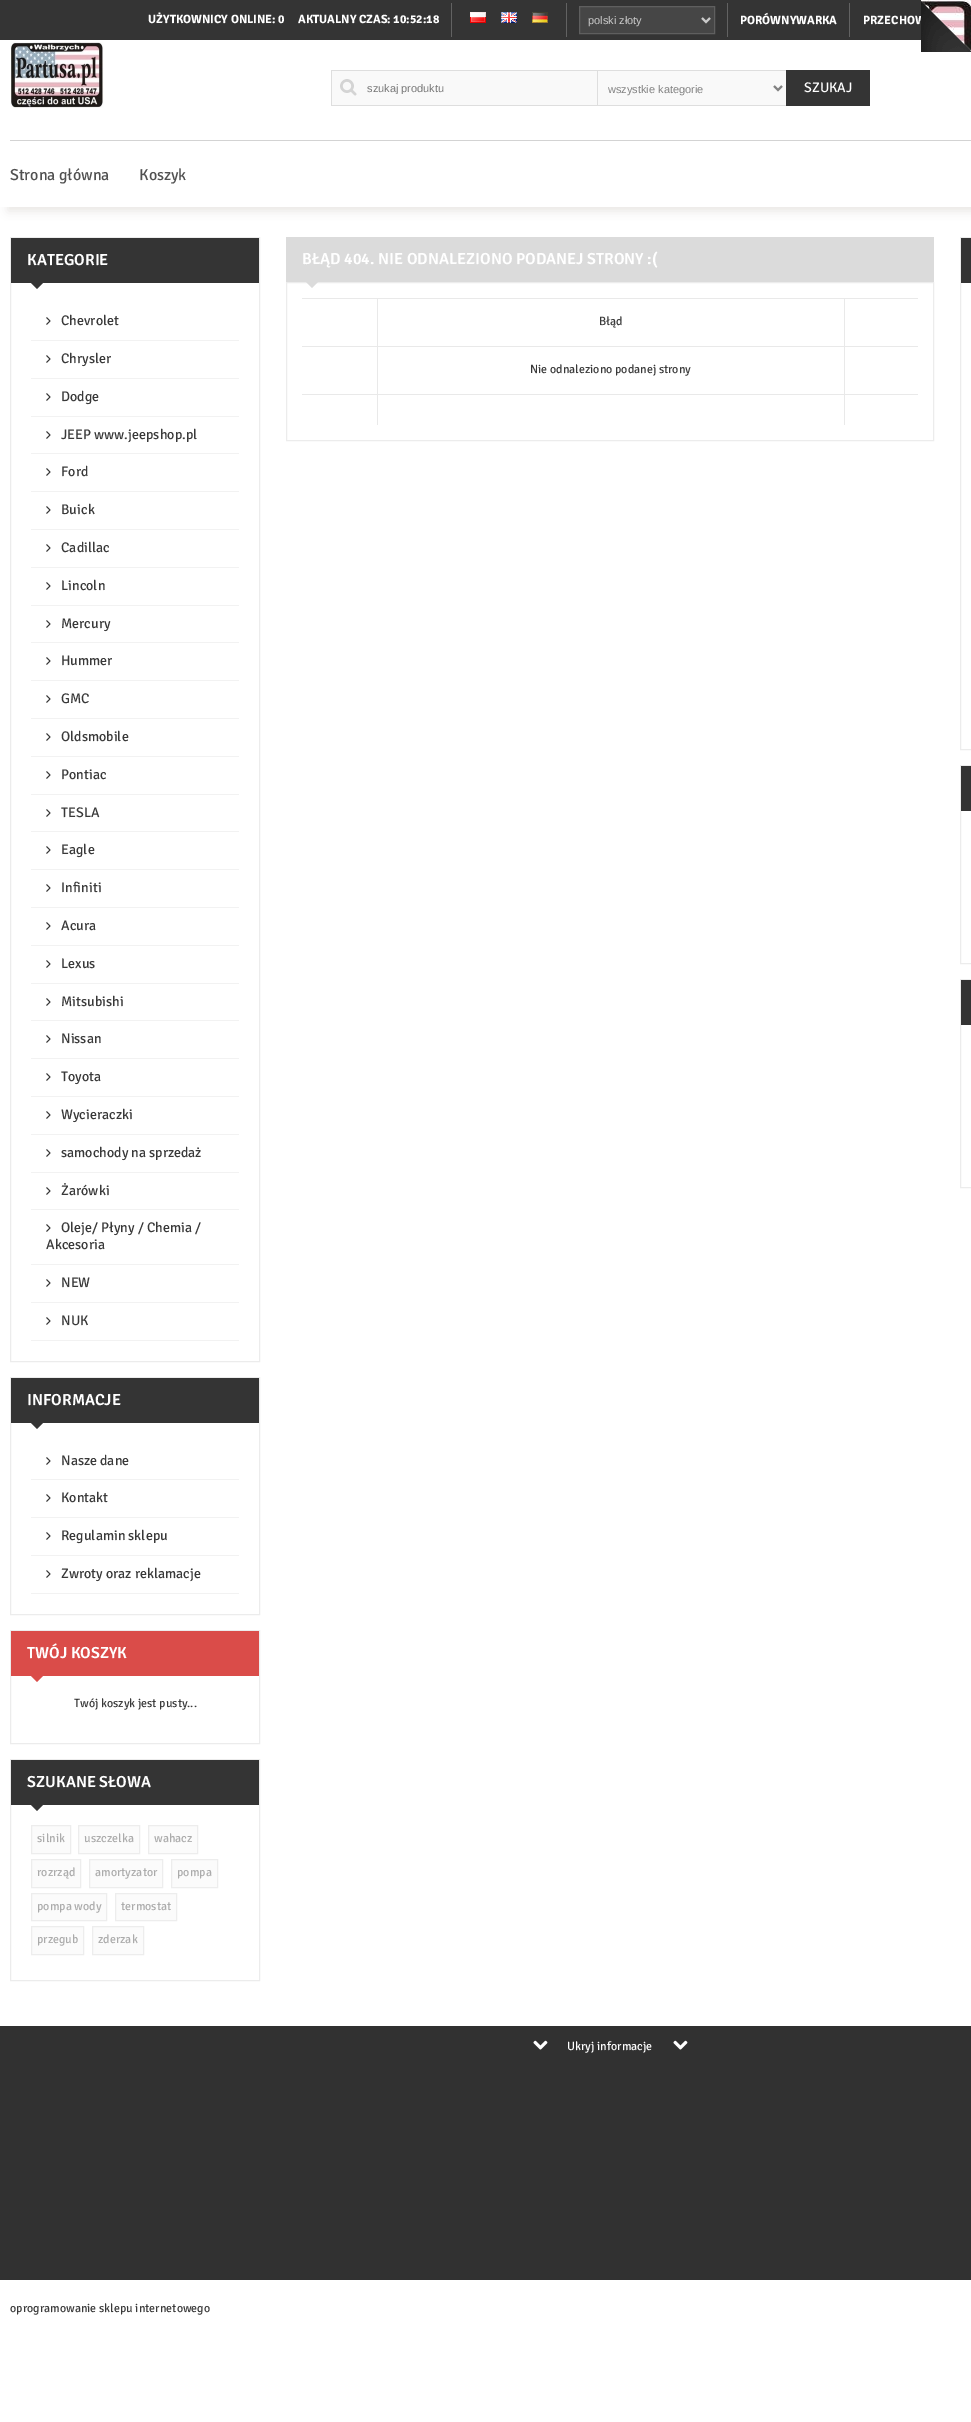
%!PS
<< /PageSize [971 2422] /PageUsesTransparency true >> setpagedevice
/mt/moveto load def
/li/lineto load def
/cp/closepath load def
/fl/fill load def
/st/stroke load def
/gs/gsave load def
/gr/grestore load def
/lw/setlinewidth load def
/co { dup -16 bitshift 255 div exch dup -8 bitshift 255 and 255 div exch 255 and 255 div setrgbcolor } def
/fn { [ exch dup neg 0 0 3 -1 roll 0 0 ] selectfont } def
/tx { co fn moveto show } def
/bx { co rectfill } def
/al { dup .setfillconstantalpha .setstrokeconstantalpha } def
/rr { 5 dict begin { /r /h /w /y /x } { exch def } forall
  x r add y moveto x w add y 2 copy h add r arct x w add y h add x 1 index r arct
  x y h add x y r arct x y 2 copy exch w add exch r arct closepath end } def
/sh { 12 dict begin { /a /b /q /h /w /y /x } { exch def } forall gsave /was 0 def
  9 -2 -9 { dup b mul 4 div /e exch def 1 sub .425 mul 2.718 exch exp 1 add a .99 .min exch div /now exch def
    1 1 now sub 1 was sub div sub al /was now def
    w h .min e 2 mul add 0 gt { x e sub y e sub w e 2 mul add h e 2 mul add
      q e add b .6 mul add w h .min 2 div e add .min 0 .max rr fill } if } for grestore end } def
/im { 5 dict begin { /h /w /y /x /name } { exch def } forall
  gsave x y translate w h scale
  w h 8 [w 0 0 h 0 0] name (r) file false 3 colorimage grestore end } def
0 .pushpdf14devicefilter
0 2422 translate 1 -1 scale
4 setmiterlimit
0 0 971 2422 16#FFFFFF bx
gs
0 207 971 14 rectclip
16#E8E6E1 co
8 20 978 191 0 5 1 sh
gr
0 0 921 40 16#343434 bx
451 3 1 34 16#626262 bx
(media/1.raw) 470 12 16 11 im
(media/2.raw) 501 12 16 11 im
(media/3.raw) 532 12 16 11 im
566 3 1 34 16#626262 bx
16#464646 co
579.5 6.5 mt 714.5 6.5 li 714.5 33.5 li 579.5 33.5 li cp gs fl gr
16#5F5F5F co
st
16#CBCBCB co
2 lw
702 18 mt 706 22 li 710 18 li st
727 3 1 34 16#626262 bx
849 3 1 34 16#626262 bx
(media/4.raw) 10 42 94 66 im
332 71 265 34 16#F9F9F9 bx
(media/5.raw) 340 79 17 17 im
331 70 455 1 16#DEDEDE bx
331 105 455 1 16#DEDEDE bx
331 70 1 36 16#DEDEDE bx
598 71 188 34 16#F9F9F9 bx
597 70 1 36 16#DEDEDE bx
16#818181 co
774 86 mt 778 90 li 782 86 li st
786 70 84 36 16#343434 bx
10 140 961 1 16#D3D3D3 bx
16#ECECEC co
1 lw
10.5 237.5 249 1124 rectstroke
11 238 248 45 16#343434 bx
31 283 mt 43 283 li 37 289 li cp fl
31 340 208 1 16#F2F2F2 bx
(media/6.raw) 46 317 5 8 im
31 378 208 1 16#F2F2F2 bx
(media/6.raw) 46 355 5 8 im
31 416 208 1 16#F2F2F2 bx
(media/6.raw) 46 393 5 8 im
31 453 208 1 16#F2F2F2 bx
(media/6.raw) 46 431 5 8 im
31 491 208 1 16#F2F2F2 bx
(media/6.raw) 46 468 5 8 im
31 529 208 1 16#F2F2F2 bx
(media/6.raw) 46 506 5 8 im
31 567 208 1 16#F2F2F2 bx
(media/6.raw) 46 544 5 8 im
31 605 208 1 16#F2F2F2 bx
(media/6.raw) 46 582 5 8 im
31 642 208 1 16#F2F2F2 bx
(media/6.raw) 46 620 5 8 im
31 680 208 1 16#F2F2F2 bx
(media/6.raw) 46 657 5 8 im
31 718 208 1 16#F2F2F2 bx
(media/6.raw) 46 695 5 8 im
31 756 208 1 16#F2F2F2 bx
(media/6.raw) 46 733 5 8 im
31 794 208 1 16#F2F2F2 bx
(media/6.raw) 46 771 5 8 im
31 831 208 1 16#F2F2F2 bx
(media/6.raw) 46 809 5 8 im
31 869 208 1 16#F2F2F2 bx
(media/6.raw) 46 846 5 8 im
31 907 208 1 16#F2F2F2 bx
(media/6.raw) 46 884 5 8 im
31 945 208 1 16#F2F2F2 bx
(media/6.raw) 46 922 5 8 im
31 983 208 1 16#F2F2F2 bx
(media/6.raw) 46 960 5 8 im
31 1020 208 1 16#F2F2F2 bx
(media/6.raw) 46 998 5 8 im
31 1058 208 1 16#F2F2F2 bx
(media/6.raw) 46 1035 5 8 im
31 1096 208 1 16#F2F2F2 bx
(media/6.raw) 46 1073 5 8 im
31 1134 208 1 16#F2F2F2 bx
(media/6.raw) 46 1111 5 8 im
31 1172 208 1 16#F2F2F2 bx
(media/6.raw) 46 1149 5 8 im
31 1209 208 1 16#F2F2F2 bx
(media/6.raw) 46 1187 5 8 im
31 1264 208 1 16#F2F2F2 bx
(media/6.raw) 46 1224 5 8 im
31 1302 208 1 16#F2F2F2 bx
(media/6.raw) 46 1279 5 8 im
31 1340 208 1 16#F2F2F2 bx
(media/6.raw) 46 1317 5 8 im
16#ECECEC co
10.5 1377.5 249 237 rectstroke
11 1378 248 45 16#343434 bx
31 1423 mt 43 1423 li 37 1429 li cp fl
31 1479 208 1 16#F2F2F2 bx
(media/6.raw) 46 1457 5 8 im
31 1517 208 1 16#F2F2F2 bx
(media/6.raw) 46 1494 5 8 im
31 1555 208 1 16#F2F2F2 bx
(media/6.raw) 46 1532 5 8 im
31 1593 208 1 16#F2F2F2 bx
(media/6.raw) 46 1570 5 8 im
16#ECECEC co
10.5 1630.5 249 113 rectstroke
11 1631 248 45 16#DA4C49 bx
31 1676 mt 43 1676 li 37 1682 li cp fl
16#ECECEC co
10.5 1759.5 249 221 rectstroke
11 1760 248 45 16#343434 bx
31 1805 mt 43 1805 li 37 1811 li cp fl
16#FBFBFB co
31.5 1825.5 mt 70.5 1825.5 li 70.5 1853.5 li 31.5 1853.5 li cp gs fl gr
16#EDEDED co
st
16#FBFBFB co
78.5 1825.5 mt 139.5 1825.5 li 139.5 1853.5 li 78.5 1853.5 li cp gs fl gr
16#EDEDED co
st
16#FBFBFB co
148.5 1825.5 mt 197.5 1825.5 li 197.5 1853.5 li 148.5 1853.5 li cp gs fl gr
16#EDEDED co
st
16#FBFBFB co
31.5 1859.5 mt 80.5 1859.5 li 80.5 1887.5 li 31.5 1887.5 li cp gs fl gr
16#EDEDED co
st
16#FBFBFB co
89.5 1859.5 mt 162.5 1859.5 li 162.5 1887.5 li 89.5 1887.5 li cp gs fl gr
16#EDEDED co
st
16#FBFBFB co
171.5 1859.5 mt 217.5 1859.5 li 217.5 1887.5 li 171.5 1887.5 li cp gs fl gr
16#EDEDED co
st
16#FBFBFB co
31.5 1893.5 mt 106.5 1893.5 li 106.5 1920.5 li 31.5 1920.5 li cp gs fl gr
16#EDEDED co
st
16#FBFBFB co
115.5 1893.5 mt 176.5 1893.5 li 176.5 1920.5 li 115.5 1920.5 li cp gs fl gr
16#EDEDED co
st
16#FBFBFB co
31.5 1926.5 mt 83.5 1926.5 li 83.5 1954.5 li 31.5 1954.5 li cp gs fl gr
16#EDEDED co
st
16#FBFBFB co
92.5 1926.5 mt 143.5 1926.5 li 143.5 1954.5 li 92.5 1954.5 li cp gs fl gr
16#EDEDED co
st
286 237 648 45 16#DBDBDB bx
16#ECECEC co
286.5 282.5 647 158 rectstroke
16#DBDBDB co
306 282 mt 318 282 li 312 288 li cp fl
302 298 616 1 16#E9E9E9 bx
377 298 1 48 16#E9E9E9 bx
844 298 1 48 16#E9E9E9 bx
302 346 616 1 16#E9E9E9 bx
377 346 1 48 16#E9E9E9 bx
844 346 1 48 16#E9E9E9 bx
302 394 616 1 16#E9E9E9 bx
377 394 1 31 16#E9E9E9 bx
844 394 1 31 16#E9E9E9 bx
16#ECECEC co
960.5 237.5 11 512 rectstroke
961 238 10 45 16#343434 bx
16#ECECEC co
960.5 765.5 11 198 rectstroke
961 766 10 45 16#343434 bx
16#ECECEC co
960.5 979.5 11 208 rectstroke
961 980 10 45 16#343434 bx
0 2026 971 254 16#313131 bx
(media/7.raw) 533 2040 15 10 im
(media/7.raw) 673 2040 15 10 im
(UŻYTKOWNICY ONLINE: 0) 148 23 /Signika-Bold 12 16#FFFFFF tx
(AKTUALNY CZAS: 10:52:18) 298 23 /Signika-Bold 12 16#FFFFFF tx
(polski złoty) 588 24 /LiberationSans-Regular 11 16#CBCBCB tx
(PORÓWNYWARKA) 740 24 /Signika-Bold 12 16#FFFFFF tx
(PRZECHOW) 863 24 /Signika-Bold 12 16#FFFFFF tx
gs
367 82 220 12 rectclip
(szukaj produktu) 367 92 /LiberationSans-Regular 11 16#757575 tx
gr
(wszystkie kategorie) 608 93 /LiberationSans-Regular 11 16#818181 tx
(SZUKAJ) 804 92 /Signika-Regular 14 16#FFFFFF tx
(Strona główna) 10 180 /Signika-Regular 16 16#505050 tx
(Koszyk) 139 180 /Signika-Regular 16 16#505050 tx
(KATEGORIE) 27 265 /Signika-SemiBold 16 16#FFFFFF tx
(Chevrolet) 61 325 /Signika-Regular 14 16#393939 tx
(Chrysler) 61 363 /Signika-Regular 14 16#393939 tx
(Dodge) 61 401 /Signika-Regular 14 16#393939 tx
(JEEP www.jeepshop.pl) 61 439 /Signika-Regular 14 16#393939 tx
(Ford) 61 476 /Signika-Regular 14 16#393939 tx
(Buick) 61 514 /Signika-Regular 14 16#393939 tx
(Cadillac) 61 552 /Signika-Regular 14 16#393939 tx
(Lincoln) 61 590 /Signika-Regular 14 16#393939 tx
(Mercury) 61 628 /Signika-Regular 14 16#393939 tx
(Hummer) 61 665 /Signika-Regular 14 16#393939 tx
(GMC) 61 703 /Signika-Regular 14 16#393939 tx
(Oldsmobile) 61 741 /Signika-Regular 14 16#393939 tx
(Pontiac) 61 779 /Signika-Regular 14 16#393939 tx
(TESLA) 61 817 /Signika-Regular 14 16#393939 tx
(Eagle) 61 854 /Signika-Regular 14 16#393939 tx
(Infiniti) 61 892 /Signika-Regular 14 16#393939 tx
(Acura) 61 930 /Signika-Regular 14 16#393939 tx
(Lexus) 61 968 /Signika-Regular 14 16#393939 tx
(Mitsubishi) 61 1006 /Signika-Regular 14 16#393939 tx
(Nissan) 61 1043 /Signika-Regular 14 16#393939 tx
(Toyota) 61 1081 /Signika-Regular 14 16#393939 tx
(Wycieraczki) 61 1119 /Signika-Regular 14 16#393939 tx
(samochody na sprzedaż) 61 1157 /Signika-Regular 14 16#393939 tx
(Żarówki) 61 1195 /Signika-Regular 14 16#393939 tx
(Oleje/ Płyny / Chemia /) 61 1232 /Signika-Regular 14 16#393939 tx
(Akcesoria) 46 1249 /Signika-Regular 14 16#393939 tx
(NEW) 61 1287 /Signika-Regular 14 16#393939 tx
(NUK) 61 1325 /Signika-Regular 14 16#393939 tx
(INFORMACJE) 27 1405 /Signika-SemiBold 16 16#FFFFFF tx
(Nasze dane) 61 1465 /Signika-Regular 14 16#393939 tx
(Kontakt) 61 1502 /Signika-Regular 14 16#393939 tx
(Regulamin sklepu) 61 1540 /Signika-Regular 14 16#393939 tx
(Zwroty oraz reklamacje) 61 1578 /Signika-Regular 14 16#393939 tx
(TWÓJ KOSZYK) 27 1658 /Signika-SemiBold 16 16#FFFFFF tx
(Twój koszyk jest pusty...) 74 1707 /Signika-Regular 12 16#393939 tx
(SZUKANE SŁOWA) 27 1787 /Signika-SemiBold 16 16#FFFFFF tx
(silnik) 37 1842 /Signika-Regular 12 16#ABABAB tx
(uszczelka) 84 1842 /Signika-Regular 12 16#ABABAB tx
(wahacz) 154 1842 /Signika-Regular 12 16#ABABAB tx
(rozrząd) 37 1876 /Signika-Regular 12 16#ABABAB tx
(amortyzator) 95 1876 /Signika-Regular 12 16#ABABAB tx
(pompa) 177 1876 /Signika-Regular 12 16#ABABAB tx
(pompa wody) 37 1910 /Signika-Regular 12 16#ABABAB tx
(termostat) 121 1910 /Signika-Regular 12 16#ABABAB tx
(przegub) 37 1943 /Signika-Regular 12 16#ABABAB tx
(zderzak) 98 1943 /Signika-Regular 12 16#ABABAB tx
(BŁĄD 404. NIE ODNALEZIONO PODANEJ STRONY :\() 302 264 /Signika-SemiBold 16 16#FFFFFF tx
(Błąd) 599 325 /Signika-Regular 12 16#393939 tx
(Nie odnaleziono podanej strony) 530 373 /Signika-Regular 12 16#393939 tx
(Ukryj informacje) 567 2050 /Signika-Regular 12 16#FFFFFF tx
(oprogramowanie sklepu internetowego) 10 2312 /Signika-Regular 12 16#393939 tx
(media/8.raw) 921 0 50 50 im
(media/9.raw) 921 1 50 51 im
.poppdf14devicefilter showpage
